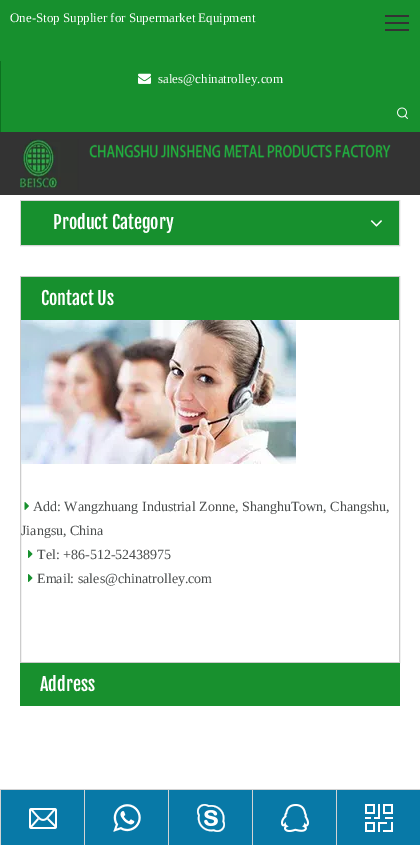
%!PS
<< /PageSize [420 845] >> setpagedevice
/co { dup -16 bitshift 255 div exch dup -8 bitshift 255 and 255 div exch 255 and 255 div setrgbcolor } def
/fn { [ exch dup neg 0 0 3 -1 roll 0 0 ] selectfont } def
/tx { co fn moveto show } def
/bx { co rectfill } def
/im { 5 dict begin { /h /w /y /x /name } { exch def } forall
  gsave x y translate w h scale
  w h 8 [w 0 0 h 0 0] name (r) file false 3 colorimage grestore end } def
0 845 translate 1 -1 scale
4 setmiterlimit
0 0 420 845 16#FFFFFF bx
0 0 420 132 16#17902E bx
0 61 1 71 16#0C711F bx
(media/1.raw) 138 73 13 11 im
(media/2.raw) 397 107 11 12 im
0 132 420 63 16#333333 bx
385 15 24 2 16#333333 bx
385 22 24 2 16#333333 bx
385 29 24 2 16#333333 bx
(media/3.raw) 20 139 371 51 im
16#D6D6D6 co
20.5 200.5 379 45 rectstroke
21 201 378 44 16#17902E bx
(media/4.raw) 370 220 12 7 im
16#CCCCCC co
20.5 276.5 379 386 rectstroke
21 277 378 43 16#17902E bx
(media/5.raw) 21 320 275 144 im
(media/6.raw) 24 502 5 8 im
(media/7.raw) 28 550 5 8 im
(media/7.raw) 28 574 5 8 im
20 663 380 43 16#18902E bx
0 789 420 1 16#D3D3D3 bx
0 790 1 55 16#D3D3D3 bx
1 790 83 55 16#0879A7 bx
(media/8.raw) 29 808 28 21 im
84 790 1 55 16#D3D3D3 bx
85 790 83 55 16#0879A7 bx
(media/9.raw) 113 804 28 28 im
168 790 1 55 16#D3D3D3 bx
169 790 83 55 16#0879A7 bx
(media/10.raw) 197 804 28 28 im
252 790 1 55 16#D3D3D3 bx
253 790 83 55 16#0879A7 bx
(media/11.raw) 281 804 28 28 im
336 790 1 55 16#D3D3D3 bx
337 790 83 55 16#0879A7 bx
(media/12.raw) 365 804 28 28 im
(One-Stop Supplier for Supermarket Equipment) 10 22 /LiberationSerif-Regular 13 16#FFFFFF tx
(sales@chinatrolley.com) 158 83 /LiberationSerif-Regular 13 16#FFFFFF tx
(Product Category) 53 229 /FjallaOne-Regular 18 16#FFFFFF tx
(Contact Us) 41 305 /FjallaOne-Regular 18 16#FFFFFF tx
(Add: Wangzhuang Industrial Zonne, ShanghuTown, Changshu,) 33 511 /LiberationSerif-Regular 14 16#4A4D4D tx
(Jiangsu, China) 21 535 /LiberationSerif-Regular 14 16#4A4D4D tx
(Tel: +86-512-52438975) 37 559 /LiberationSerif-Regular 14 16#4A4D4D tx
(Email: sales@chinatrolley.com) 37 583 /LiberationSerif-Regular 14 16#4A4D4D tx
(Address) 40 691 /FjallaOne-Regular 18 16#FFFFFF tx
showpage
